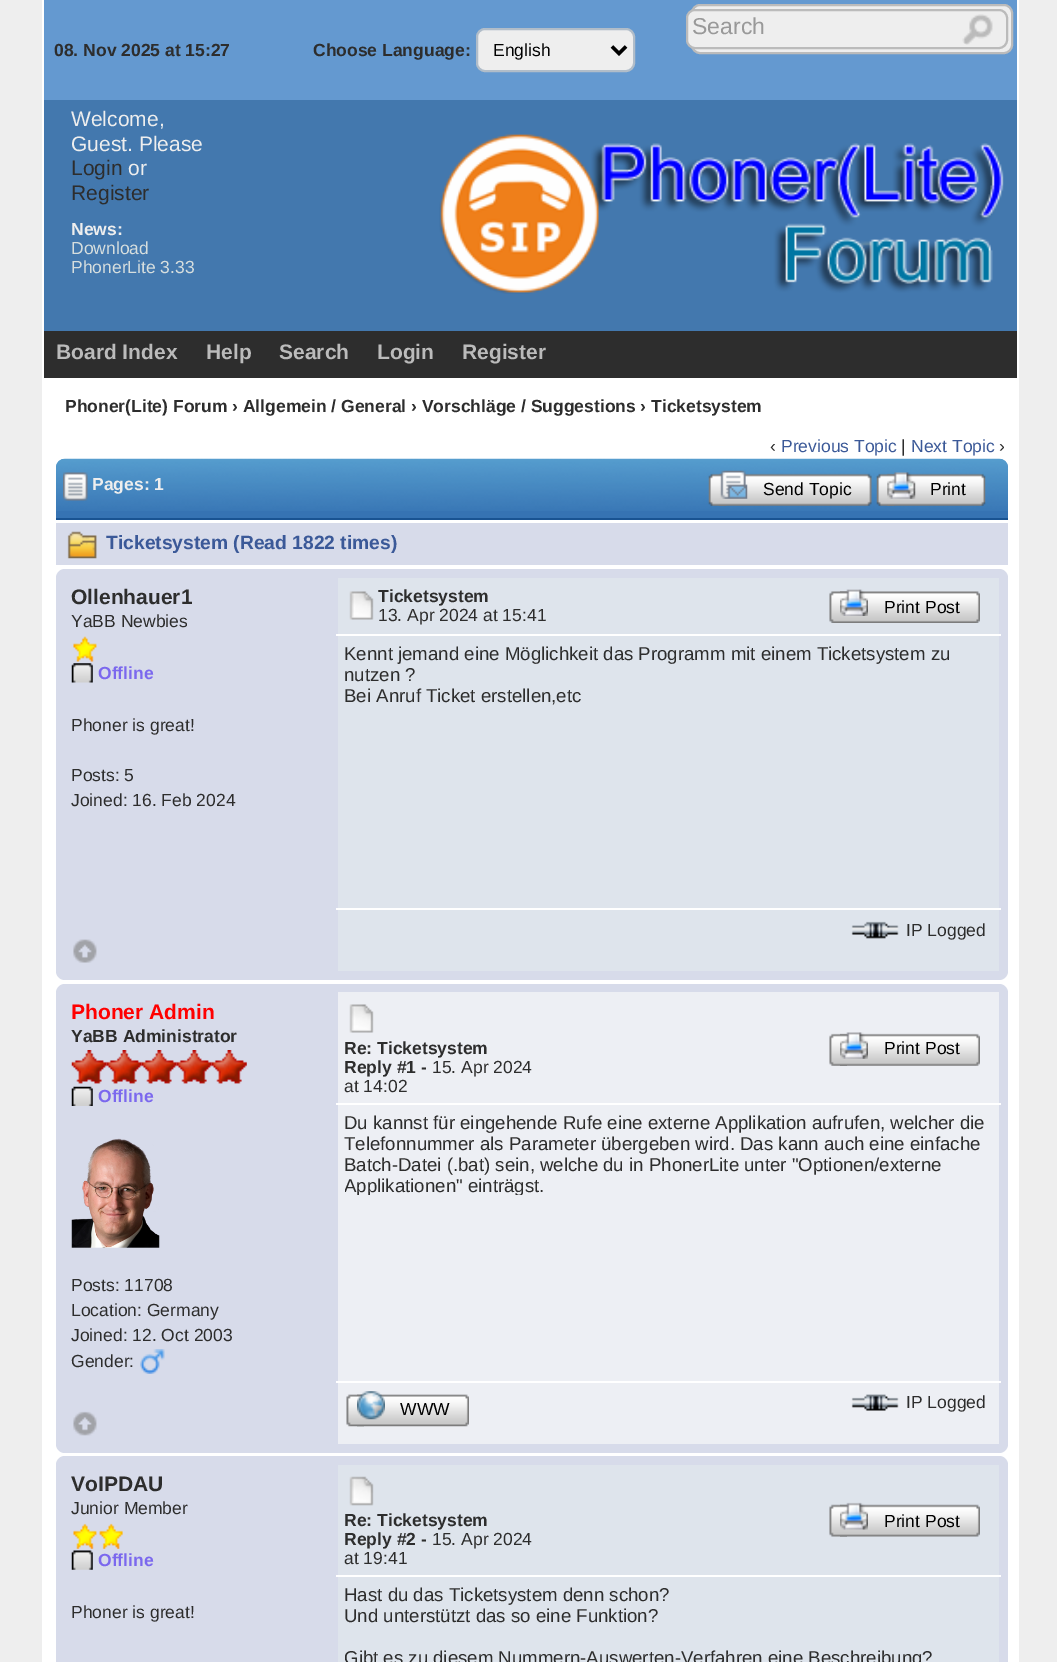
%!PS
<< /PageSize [1057 1662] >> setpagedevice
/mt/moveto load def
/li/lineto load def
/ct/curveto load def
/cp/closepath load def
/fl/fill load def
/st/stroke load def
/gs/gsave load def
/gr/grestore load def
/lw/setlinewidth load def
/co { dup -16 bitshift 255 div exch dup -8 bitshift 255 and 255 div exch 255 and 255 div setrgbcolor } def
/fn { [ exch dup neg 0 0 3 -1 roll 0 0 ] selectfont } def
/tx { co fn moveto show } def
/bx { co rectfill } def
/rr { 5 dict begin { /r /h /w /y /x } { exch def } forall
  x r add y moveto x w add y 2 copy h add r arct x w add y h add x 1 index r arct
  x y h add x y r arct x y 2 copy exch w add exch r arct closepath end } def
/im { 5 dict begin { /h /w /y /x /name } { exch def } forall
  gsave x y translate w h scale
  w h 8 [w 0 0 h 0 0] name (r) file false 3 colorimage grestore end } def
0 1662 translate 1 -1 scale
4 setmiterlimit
0 0 1057 1662 16#EEEEEE bx
42 0 977 1662 16#FFFFFF bx
44 0 973 100 16#6499D0 bx
16#EEEEEE co
692 5 320 48 8 rr gs fl gr
16#BBBBBB co
2 lw
st
16#EEEEEE co
687 10 320 38 8 rr gs fl gr
16#BBBBBB co
st
(media/1.raw) 962 14 31 31 im
16#EEEEEE co
477 29 157 42 8 rr gs fl gr
16#B1BDC9 co
st
16#000000 co
3.5 lw
612 46.5 mt 619 53.5 li 626 46.5 li st
44 100 973 231 16#4378AE bx
(media/2.raw) 439 134 565 160 im
44 331 973 47 16#2D2D2D bx
16#3673B3 co
65 459 mt 999 459 li 1004 459 1008 463 1008 468 ct 1008 520 li 56 520 li 56 468 li 56 463 60 459 65 459 ct cp fl
(media/3.raw) 56 458 952 53 im
56 518 952 2 16#195392 bx
(media/4.raw) 63 472 25 29 im
(media/5.raw) 708 473 19 33 im
(media/6.raw) 719 473 153 33 im
(media/7.raw) 720 470 28 29 im
(media/8.raw) 876 473 19 33 im
(media/9.raw) 887 473 99 33 im
(media/10.raw) 887 472 29 27 im
56 523 952 42 16#D7DBEA bx
(media/11.raw) 67 531 30 28 im
56 569 952 411 9 rr fl
338 578 661 56 16#DEE4EC bx
(media/12.raw) 73 636 24 26 im
(media/13.raw) 71 663 22 20 im
(media/14.raw) 349 591 25 29 im
336 634 665 2 16#FFFFFF bx
(media/15.raw) 829 591 18 32 im
(media/16.raw) 840 591 140 32 im
(media/17.raw) 840 589 28 27 im
338 636 661 272 16#DEE4EC bx
338 910 661 61 16#DEE4EC bx
336 908 665 2 16#FFFFFF bx
(media/18.raw) 851 921 48 18 im
(media/19.raw) 73 939 24 24 im
16#D7DBEA co
56 984 952 469 9 rr fl
338 992 661 111 16#EDEFF4 bx
(media/20.raw) 71 1050 36 34 im
(media/21.raw) 106 1050 36 34 im
(media/22.raw) 141 1050 36 34 im
(media/21.raw) 176 1050 36 34 im
(media/21.raw) 211 1050 36 34 im
(media/23.raw) 71 1086 22 20 im
(media/24.raw) 71 1138 89 110 im
(media/25.raw) 140 1349 25 25 im
(media/26.raw) 349 1004 25 29 im
336 1103 665 2 16#FFFFFF bx
(media/27.raw) 829 1033 18 33 im
(media/28.raw) 840 1033 140 33 im
(media/29.raw) 840 1032 28 27 im
338 1105 661 276 16#EDEFF4 bx
338 1383 661 61 16#EDEFF4 bx
336 1381 665 2 16#FFFFFF bx
(media/30.raw) 346 1394 18 33 im
(media/31.raw) 357 1394 112 33 im
(media/32.raw) 357 1391 28 29 im
(media/33.raw) 851 1394 48 17 im
(media/34.raw) 73 1411 24 25 im
16#D7DBEA co
56 1456 952 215 9 rr fl
338 1465 661 110 16#DEE4EC bx
(media/35.raw) 73 1523 24 26 im
(media/36.raw) 99 1523 24 26 im
(media/37.raw) 71 1550 22 20 im
(media/38.raw) 349 1476 25 30 im
336 1575 665 2 16#FFFFFF bx
(media/39.raw) 829 1504 18 33 im
(media/40.raw) 840 1504 140 33 im
(media/41.raw) 840 1502 28 28 im
338 1577 661 85 16#DEE4EC bx
(Search) 692 34 /LiberationSans-Regular 23 16#999999 tx
(08. Nov 2025 at 15:27) 54 56 /LiberationSans-Bold 17.5 16#2D2D2D tx
(Choose Language:) 313 56 /LiberationSans-Bold 17.5 16#2D2D2D tx
(English) 493 56 /LiberationSans-Regular 17.5 16#000000 tx
(Welcome,) 71 126 /LiberationSans-Regular 21 16#EEEEEE tx
(Guest. Please) 71 151 /LiberationSans-Regular 21 16#EEEEEE tx
(Login) 71 175 /LiberationSans-Regular 21 16#2D2D2D tx
(or) 128 175 /LiberationSans-Regular 21 16#EEEEEE tx
(Register) 71 200 /LiberationSans-Regular 21 16#2D2D2D tx
(News:) 71 235 /LiberationSans-Bold 17.5 16#EEEEEE tx
(Download) 71 254 /LiberationSans-Regular 17.5 16#D6DEDE tx
(PhonerLite 3.33) 71 273 /LiberationSans-Regular 17.5 16#D6DEDE tx
(Board Index) 56 359 /LiberationSans-Bold 21 16#BBBBBB tx
(Help) 206 359 /LiberationSans-Bold 21 16#BBBBBB tx
(Search) 279 359 /LiberationSans-Bold 21 16#BBBBBB tx
(Login) 377 359 /LiberationSans-Bold 21 16#BBBBBB tx
(Register) 462 359 /LiberationSans-Bold 21 16#BBBBBB tx
(Phoner\(Lite\) Forum › Allgemein / General › Vorschläge / Suggestions › Ticketsystem) 65 412 /LiberationSans-Bold 17.5 16#2D2D2D tx
(‹) 770 452 /LiberationSans-Regular 17.5 16#2D2D2D tx
(Previous Topic) 781 452 /LiberationSans-Regular 17.5 16#3B5998 tx
(|) 901 452 /LiberationSans-Regular 17.5 16#2D2D2D tx
(Next Topic) 911 452 /LiberationSans-Regular 17.5 16#3B5998 tx
(›) 999 452 /LiberationSans-Regular 17.5 16#2D2D2D tx
(Pages: 1) 92 490 /LiberationSans-Bold 17.5 16#EEEEEE tx
(Send Topic) 763 495 /LiberationSans-Regular 17.5 16#000000 tx
(Print) 930 495 /LiberationSans-Regular 17.5 16#000000 tx
(Ticketsystem \(Read 1822 times\)) 106 549 /LiberationSans-Bold 19.25 16#3B5998 tx
(Ollenhauer1) 71 604 /LiberationSans-Bold 21 16#2D2D2D tx
(YaBB Newbies) 71 627 /LiberationSans-Regular 17.5 16#2D2D2D tx
(Offline) 98 679 /LiberationSans-Bold 17.5 16#7B68EE tx
(Phoner is great!) 71 731 /LiberationSans-Regular 17.5 16#2D2D2D tx
(Posts: 5) 71 781 /LiberationSans-Regular 17.5 16#2D2D2D tx
(Joined: 16. Feb 2024) 71 806 /LiberationSans-Regular 17.5 16#2D2D2D tx
(Ticketsystem) 378 602 /LiberationSans-Bold 17.5 16#2D2D2D tx
(13. Apr 2024 at 15:41) 378 621 /LiberationSans-Regular 17.5 16#2D2D2D tx
(Print Post) 884 613 /LiberationSans-Regular 17.5 16#000000 tx
(Kennt jemand eine Möglichkeit das Programm mit einem Ticketsystem zu) 344 660 /LiberationSans-Regular 18.65 16#2D2D2D tx
(nutzen ?) 344 681 /LiberationSans-Regular 18.65 16#2D2D2D tx
(Bei Anruf Ticket erstellen,etc) 344 702 /LiberationSans-Regular 18.65 16#2D2D2D tx
(IP Logged) 906 936 /LiberationSans-Regular 17.5 16#2D2D2D tx
(Phoner Admin) 71 1019 /LiberationSans-Bold 21 16#FF0000 tx
(YaBB Administrator) 71 1042 /LiberationSans-Bold 17.5 16#2D2D2D tx
(Offline) 98 1102 /LiberationSans-Bold 17.5 16#7B68EE tx
(Posts: 11708) 71 1291 /LiberationSans-Regular 17.5 16#2D2D2D tx
(Location: Germany) 71 1316 /LiberationSans-Regular 17.5 16#2D2D2D tx
(Joined: 12. Oct 2003) 71 1341 /LiberationSans-Regular 17.5 16#2D2D2D tx
(Gender:) 71 1367 /LiberationSans-Regular 17.5 16#2D2D2D tx
(Re: Ticketsystem) 344 1054 /LiberationSans-Bold 17.5 16#2D2D2D tx
(Reply #1 -) 344 1073 /LiberationSans-Bold 17.5 16#2D2D2D tx
(15. Apr 2024) 432 1073 /LiberationSans-Regular 17.5 16#2D2D2D tx
(at 14:02) 344 1092 /LiberationSans-Regular 17.5 16#2D2D2D tx
(Print Post) 884 1054 /LiberationSans-Regular 17.5 16#000000 tx
(Du kannst für eingehende Rufe eine externe Applikation aufrufen, welcher die) 344 1129 /LiberationSans-Regular 18.65 16#2D2D2D tx
(Telefonnummer als Parameter übergeben wird. Das kann auch eine einfache) 344 1150 /LiberationSans-Regular 18.65 16#2D2D2D tx
(Batch-Datei \(.bat\) sein, welche du in PhonerLite unter "Optionen/externe) 344 1171 /LiberationSans-Regular 18.65 16#2D2D2D tx
gs
345 1111 642 84 rectclip
(Applikationen" einträgst.) 344 1192 /LiberationSans-Regular 18.65 16#2D2D2D tx
gr
(WWW) 400 1415 /LiberationSans-Regular 17.5 16#000000 tx
(IP Logged) 906 1408 /LiberationSans-Regular 17.5 16#2D2D2D tx
(VoIPDAU) 71 1491 /LiberationSans-Bold 21 16#2D2D2D tx
(Junior Member) 71 1514 /LiberationSans-Regular 17.5 16#2D2D2D tx
(Offline) 98 1566 /LiberationSans-Bold 17.5 16#7B68EE tx
(Phoner is great!) 71 1618 /LiberationSans-Regular 17.5 16#2D2D2D tx
(Re: Ticketsystem) 344 1526 /LiberationSans-Bold 17.5 16#2D2D2D tx
(Reply #2 -) 344 1545 /LiberationSans-Bold 17.5 16#2D2D2D tx
(15. Apr 2024) 432 1545 /LiberationSans-Regular 17.5 16#2D2D2D tx
(at 19:41) 344 1564 /LiberationSans-Regular 17.5 16#2D2D2D tx
(Print Post) 884 1527 /LiberationSans-Regular 17.5 16#000000 tx
(Hast du das Ticketsystem denn schon?) 344 1601 /LiberationSans-Regular 18.65 16#2D2D2D tx
(Und unterstützt das so eine Funktion?) 344 1622 /LiberationSans-Regular 18.65 16#2D2D2D tx
(Gibt es zu diesem Nummern-Auswerten-Verfahren eine Beschreibung?) 344 1664 /LiberationSans-Regular 18.65 16#2D2D2D tx
showpage
